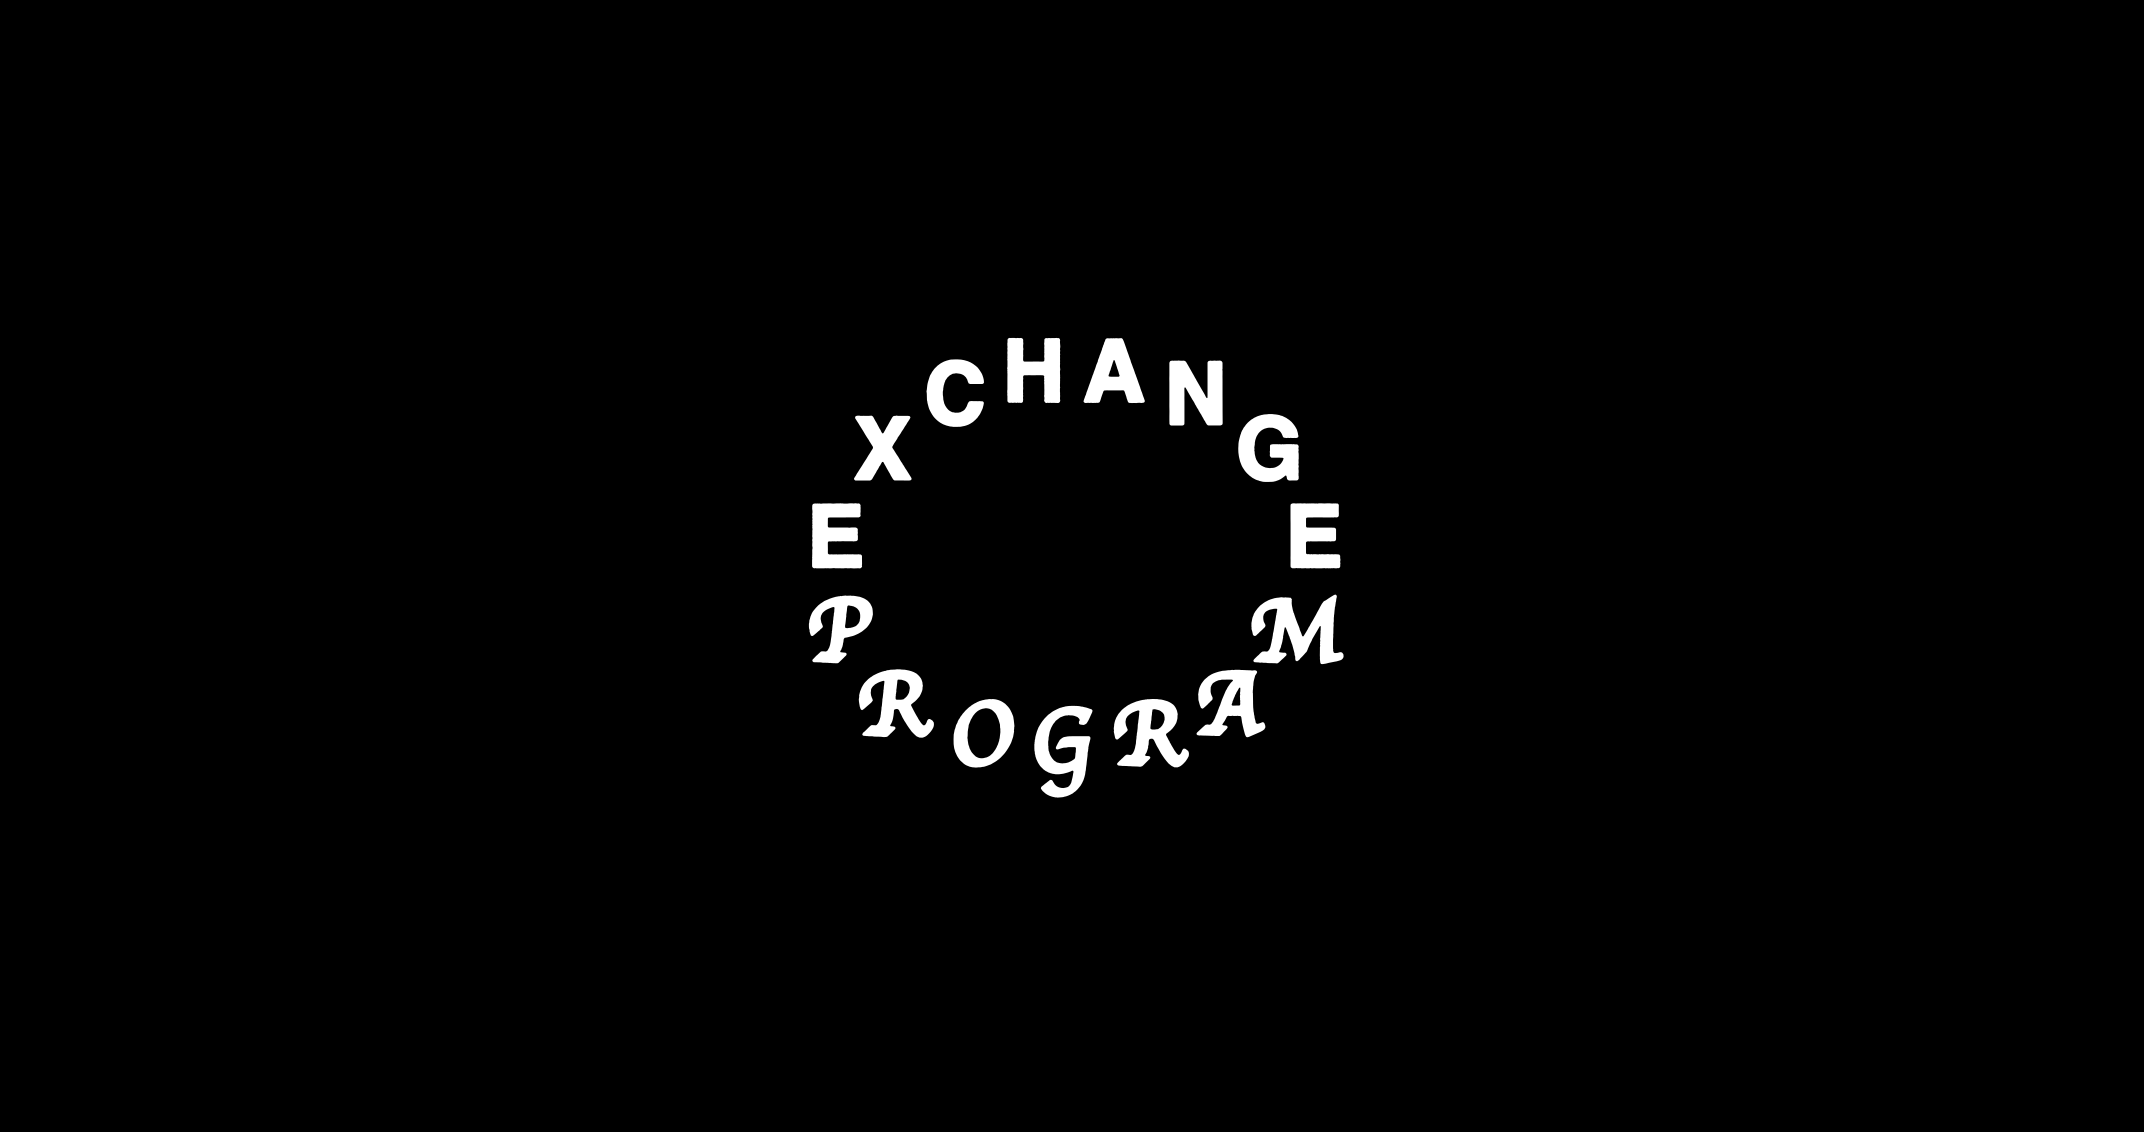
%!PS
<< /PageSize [2144 1132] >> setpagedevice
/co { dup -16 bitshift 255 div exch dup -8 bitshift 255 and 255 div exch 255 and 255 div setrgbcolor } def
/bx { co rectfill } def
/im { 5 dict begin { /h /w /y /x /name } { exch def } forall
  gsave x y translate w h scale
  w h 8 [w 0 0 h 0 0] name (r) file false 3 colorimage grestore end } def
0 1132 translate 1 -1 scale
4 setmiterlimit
0 0 2144 1132 16#000000 bx
(media/1.raw) 808 337 536 461 im
showpage
